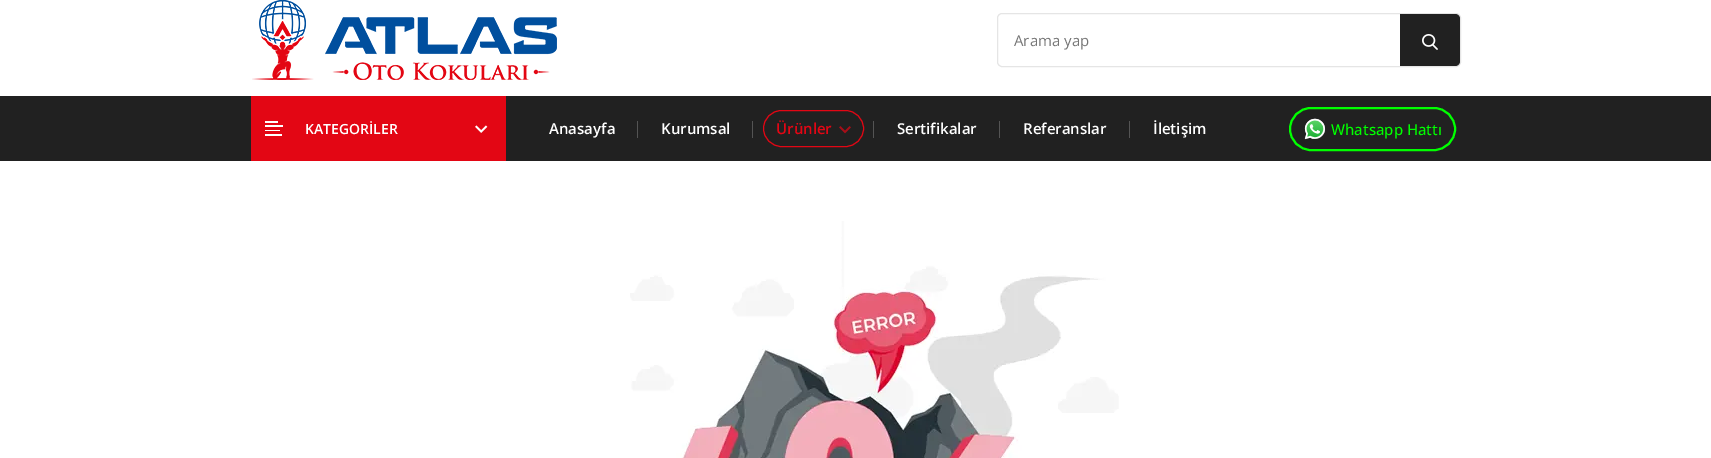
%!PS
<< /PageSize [1711 458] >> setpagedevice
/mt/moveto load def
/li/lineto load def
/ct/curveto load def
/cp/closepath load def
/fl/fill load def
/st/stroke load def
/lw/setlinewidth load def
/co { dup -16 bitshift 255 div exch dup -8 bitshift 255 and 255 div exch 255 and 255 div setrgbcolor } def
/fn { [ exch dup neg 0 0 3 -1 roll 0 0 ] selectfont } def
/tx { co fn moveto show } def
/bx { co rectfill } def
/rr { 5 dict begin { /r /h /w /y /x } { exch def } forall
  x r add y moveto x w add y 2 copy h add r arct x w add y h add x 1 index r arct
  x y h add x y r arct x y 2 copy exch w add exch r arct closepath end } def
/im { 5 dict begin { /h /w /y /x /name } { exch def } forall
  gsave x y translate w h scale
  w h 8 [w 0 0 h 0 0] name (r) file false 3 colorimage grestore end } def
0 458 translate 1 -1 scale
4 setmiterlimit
0 0 1711 458 16#FFFFFF bx
(media/1.raw) 252 0 305 80 im
16#E5E5E5 co
997.5 13.5 463 53 4.5 rr st
16#212121 co
1400 14 mt 1455 14 li 1458 14 1460 16 1460 19 ct 1460 61 li 1460 64 1458 66 1455 66 ct 1400 66 li cp fl
(media/2.raw) 1422 34 16 16 im
0 96 1711 65 16#212121 bx
251 96 255 65 16#E30614 bx
265 121 13 2 16#FFFFFF bx
265 125 18 2 16#FFFFFF bx
265 130 15 1 16#FFFFFF bx
265 134 17 2 16#FFFFFF bx
(media/3.raw) 475 125 13 8 im
637 121 1 17 16#545454 bx
752 121 1 17 16#545454 bx
16#E30614 co
763.5 110.5 100 36 18 rr st
(media/4.raw) 839 126 12 8 im
873 121 1 17 16#545454 bx
999 121 1 17 16#545454 bx
1129 121 1 17 16#545454 bx
16#00FF00 co
2 lw
1290 108 165 42 21 rr st
(media/5.raw) 1304 118 22 22 im
(media/6.raw) 630 221 489 237 im
(Arama yap) 1014 46 /OpenSans-Regular 15 16#757575 tx
(KATEGORİLER) 305 134 /OpenSans-SemiBold 14 16#FFFFFF tx
(Anasayfa) 549 134 /OpenSans-SemiBold 15 16#FFFFFF tx
(Kurumsal) 661 134 /OpenSans-SemiBold 15 16#FFFFFF tx
(Ürünler) 776 134 /OpenSans-SemiBold 15 16#E30614 tx
(Sertifikalar) 897 134 /OpenSans-SemiBold 15 16#FFFFFF tx
(Referanslar) 1023 134 /OpenSans-SemiBold 15 16#FFFFFF tx
(İletişim) 1153 134 /OpenSans-SemiBold 15 16#FFFFFF tx
(Whatsapp Hattı) 1331 135 /OpenSans-Medium 15 16#00FF00 tx
showpage
